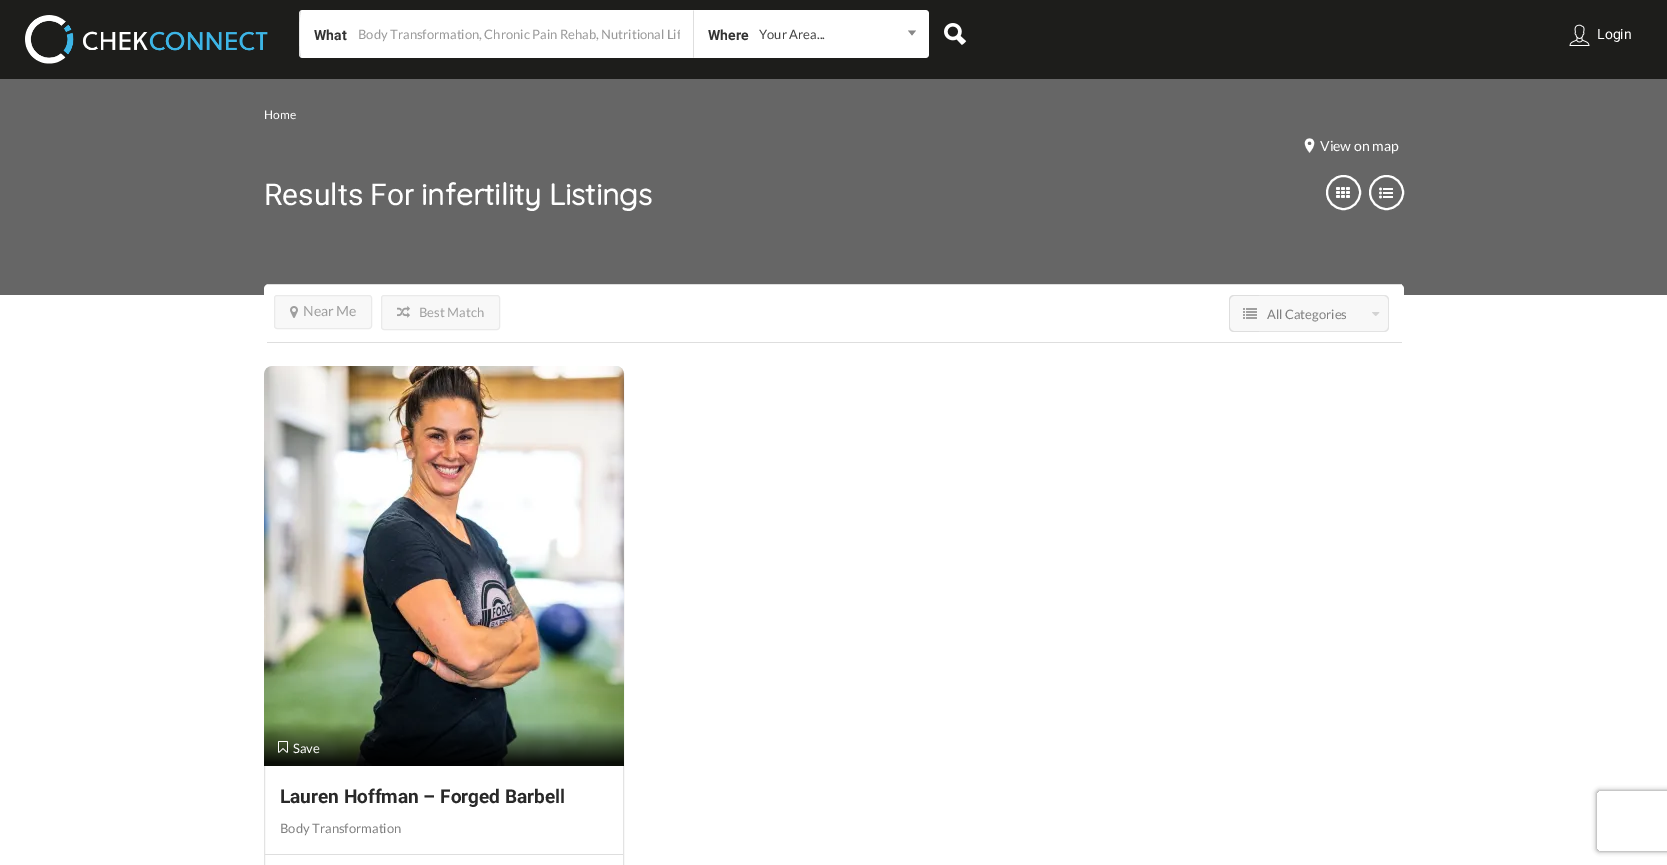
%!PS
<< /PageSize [1667 865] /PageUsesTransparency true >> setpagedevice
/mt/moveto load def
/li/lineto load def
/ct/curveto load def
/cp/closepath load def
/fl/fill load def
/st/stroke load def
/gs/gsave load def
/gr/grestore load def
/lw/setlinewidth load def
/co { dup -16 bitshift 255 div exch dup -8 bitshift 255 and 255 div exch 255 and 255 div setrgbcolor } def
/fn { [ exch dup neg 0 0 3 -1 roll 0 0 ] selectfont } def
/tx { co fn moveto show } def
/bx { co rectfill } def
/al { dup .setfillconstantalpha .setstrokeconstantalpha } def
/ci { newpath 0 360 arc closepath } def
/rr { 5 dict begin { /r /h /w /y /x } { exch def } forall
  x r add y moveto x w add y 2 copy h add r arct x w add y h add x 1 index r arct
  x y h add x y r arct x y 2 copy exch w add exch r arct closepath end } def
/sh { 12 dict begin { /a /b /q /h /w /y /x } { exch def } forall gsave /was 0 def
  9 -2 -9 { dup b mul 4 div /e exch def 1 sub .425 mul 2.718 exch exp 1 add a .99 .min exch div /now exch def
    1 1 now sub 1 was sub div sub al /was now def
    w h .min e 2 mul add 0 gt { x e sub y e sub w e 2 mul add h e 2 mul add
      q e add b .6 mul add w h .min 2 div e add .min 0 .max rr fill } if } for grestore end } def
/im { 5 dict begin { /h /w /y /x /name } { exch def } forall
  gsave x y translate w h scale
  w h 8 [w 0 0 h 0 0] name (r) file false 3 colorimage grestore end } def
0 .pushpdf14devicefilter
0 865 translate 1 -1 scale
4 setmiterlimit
0 0 1667 865 16#FFFFFF bx
0 0 1667 79 16#1D1D1B bx
(media/1.raw) 25 15 243 49 im
16#FFFFFF co
303 10 mt 693 10 li 693 58 li 303 58 li 301 58 299 56 299 54 ct 299 14 li 299 12 301 10 303 10 ct cp fl
303 10 mt 300 11 li 301 12 li 303 11 li 692 11 li 693 10 li cp fl
693 58 mt 692 57 li 303 57 li 301 56 li 300 57 li 303 58 li cp fl
16#DEDEDE co
299 14 mt 299 54 li 299 55 300 56 300 57 ct 301 56 li 299 55 299 13 301 12 ct 300 11 li cp fl
16#FFFFFF co
693 10 mt 925 10 li 927 10 929 12 929 14 ct 929 54 li 929 56 927 58 925 58 ct 693 58 li cp fl
693 10 mt 694 11 li 927 11 li 927 12 li 928 11 li 925 10 li cp fl
929 54 mt 929 14 li 929 13 928 12 928 11 ct 927 12 li 929 13 929 55 927 56 ct 928 57 li cp fl
925 58 mt 928 57 li 927 56 li 927 57 li 694 57 li 693 58 li cp fl
16#DEDEDE co
693 10 mt 693 58 li 694 57 li 694 11 li cp fl
16#888888 co
908 30.5 mt 916 30.5 li 912 35.5 li cp fl
(media/2.raw) 944 23 23 22 im
(media/3.raw) 1569 24 21 22 im
0 79 1667 216 16#666666 bx
(media/4.raw) 1304 138 11 15 im
16#FFFFFF co
2 lw
1343.5 192.5 16.5 ci st
(media/5.raw) 1336 187 14 11 im
1386.5 192.5 16.5 ci st
(media/6.raw) 1379 187 14 12 im
264 284 1140 59 5 rr fl
267 284 1135 1 16#DEDEDE bx
267 342 1135 1 16#DEDEDE bx
16#F8F8F8 co
274.5 295.5 97 33 2.5 rr gs fl gr
16#EAEAEA co
1 lw
st
(media/7.raw) 290 306 8 12 im
16#F8F8F8 co
381.5 295.5 118 34 2.5 rr gs fl gr
16#EAEAEA co
st
(media/8.raw) 397 306 13 12 im
16#F8F8F8 co
1234 295 mt 1259 295 li 1259 332 li 1234 332 li 1231 332 1229 330 1229 327 ct 1229 300 li 1229 297 1231 295 1234 295 ct cp fl
16#DEDEDE co
1234 295 mt 1259 295 li 1259 332 li 1234 332 li 1231 332 1229 330 1229 327 ct 1229 300 li 1229 297 1231 295 1234 295 ct cp 1234 296 mt 1259 296 li 1259 331 li 1234 331 li 1232 331 1230 329 1230 327 ct 1230 300 li 1230 298 1232 296 1234 296 ct cp eofill
(media/9.raw) 1243 308 14 11 im
16#F8F8F8 co
1259 295 mt 1384 295 li 1387 295 1389 297 1389 300 ct 1389 327 li 1389 330 1387 332 1384 332 ct 1259 332 li cp fl
16#E3E3E3 co
1259 295 mt 1384 295 li 1387 295 1389 297 1389 300 ct 1389 327 li 1389 330 1387 332 1384 332 ct 1259 332 li cp 1259 296 mt 1384 296 li 1386 296 1388 298 1388 300 ct 1388 327 li 1388 329 1386 331 1384 331 ct 1259 331 li cp eofill
(media/10.raw) 1372 312 8 4 im
264.5 366.5 359 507 7.5 rr st
(media/11.raw) 264 366 360 400 im
(media/12.raw) 278 741 10 12 im
265 854 358 1 16#DEDEDE bx
gs
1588 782 mt 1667 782 li 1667 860 li 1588 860 li cp 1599 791 mt 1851 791 li 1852 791 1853 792 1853 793 ct 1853 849 li 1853 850 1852 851 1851 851 ct 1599 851 li 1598 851 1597 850 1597 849 ct 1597 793 li 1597 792 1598 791 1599 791 ct cp eoclip newpath
16#808080 co
1597 791 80 60 2 2.5 1 sh
gr
(What) 314 40 /Roboto-Bold 14 16#333333 tx
gs
358 26 322 16 rectclip
(Body Transformation, Chronic Pain Rehab, Nutritional Lif) 358 39 /Lato-Regular 13 16#999999 tx
gr
(Where) 708 40 /Roboto-Bold 14 16#333333 tx
(Your Area...) 759 39 /Lato-Regular 13 16#444444 tx
(Login) 1597 39 /Roboto-Regular 14 16#FFFFFF tx
(Home) 264 119 /Lato-Regular 12 16#FFFFFF tx
(View on map) 1320 151 /Lato-Regular 14 16#FFFFFF tx
(Results For) 264 205 /Roboto-Regular 30 16#FFFFFF tx
(infertility) 421 205 /Quicksand-Bold 30 16#FFFFFF tx
(Listings) 549 205 /Quicksand-Bold 30 16#FFFFFF tx
(Near Me) 303 316 /Lato-Regular 14 16#9F9F9F tx
(Best Match) 419 317 /Lato-Regular 13 16#9F9F9F tx
(All Categories) 1267 319 /Lato-Regular 13 16#7F7F7F tx
(Save) 293 753 /Lato-Regular 13 16#FFFFFF tx
(Lauren Hoffman – Forged Barbell) 280 803 /Roboto-Bold 19 16#292929 tx
(Body Transformation) 280 833 /Lato-Regular 13 16#7F7F7F tx
.poppdf14devicefilter showpage
